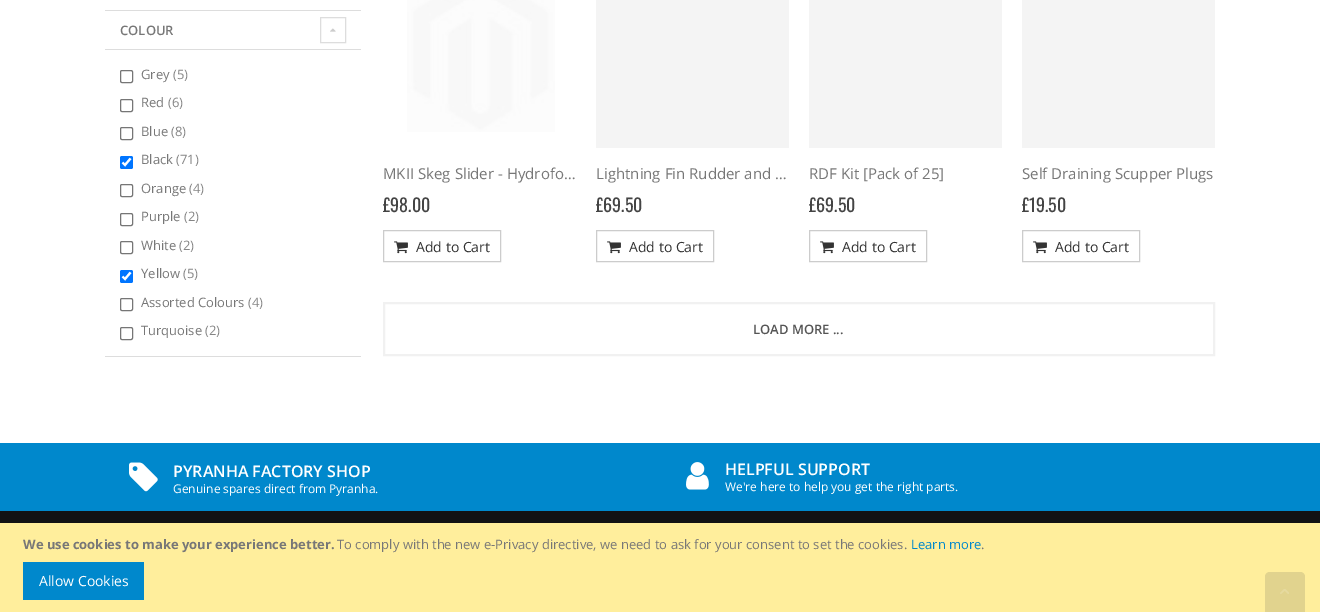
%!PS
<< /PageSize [1320 612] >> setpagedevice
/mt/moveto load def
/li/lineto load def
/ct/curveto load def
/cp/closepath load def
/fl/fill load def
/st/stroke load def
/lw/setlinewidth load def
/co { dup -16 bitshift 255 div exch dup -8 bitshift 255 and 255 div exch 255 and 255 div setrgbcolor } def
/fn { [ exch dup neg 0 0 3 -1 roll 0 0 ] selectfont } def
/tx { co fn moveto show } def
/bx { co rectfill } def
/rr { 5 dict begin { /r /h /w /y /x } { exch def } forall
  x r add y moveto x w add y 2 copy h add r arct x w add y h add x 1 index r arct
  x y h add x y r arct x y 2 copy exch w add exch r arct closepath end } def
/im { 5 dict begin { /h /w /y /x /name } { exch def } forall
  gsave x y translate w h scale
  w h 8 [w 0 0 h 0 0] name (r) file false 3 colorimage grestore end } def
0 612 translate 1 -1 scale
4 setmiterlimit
0 0 1320 612 16#FFFFFF bx
105 10 256 1 16#DDDDDD bx
105 49 256 1 16#DDDDDD bx
320.5 17.5 25 25 rectstroke
(media/1.raw) 330 28 6 4 im
105 356 256 1 16#DDDDDD bx
16#767676 co
120.5 70.5 12 12 1.5 rr st
120.5 99.5 12 12 1.5 rr st
120.5 127.5 12 12 1.5 rr st
16#0075FF co
120 156 13 13 2 rr fl
16#FFFFFF co
2.1 lw
122.5 162.5 mt 125 165 li 130.5 158.5 li st
16#767676 co
1 lw
120.5 184.5 12 12 1.5 rr st
120.5 213.5 12 12 1.5 rr st
120.5 241.5 12 12 1.5 rr st
16#0075FF co
120 270 13 13 2 rr fl
16#FFFFFF co
2.1 lw
122.5 276.5 mt 125 279 li 130.5 272.5 li st
16#767676 co
1 lw
120.5 298.5 12 12 1.5 rr st
120.5 327.5 12 12 1.5 rr st
(media/2.raw) 407 0 148 132 im
16#CCCCCC co
383.5 230.5 117 31 rectstroke
(media/3.raw) 394 241 14 13 im
596 0 193 148 16#F4F4F4 bx
16#CCCCCC co
596.5 230.5 117 31 rectstroke
(media/3.raw) 607 241 14 13 im
809 0 193 148 16#F4F4F4 bx
16#CCCCCC co
809.5 230.5 117 31 rectstroke
(media/3.raw) 820 241 14 13 im
1022 0 193 148 16#F4F4F4 bx
16#CCCCCC co
1022.5 230.5 117 31 rectstroke
(media/3.raw) 1033 241 14 13 im
16#F1F1F1 co
2 lw
384 303 830 52 rectstroke
0 443 1320 68 16#0088CC bx
(media/4.raw) 129 462 29 30 im
(media/5.raw) 686 462 23 28 im
0 511 1320 12 16#121214 bx
0 523 1320 89 16#FFEE9C bx
16#E1D38E co
1270 572 mt 1300 572 li 1303 572 1305 574 1305 577 ct 1305 612 li 1265 612 li 1265 577 li 1265 574 1267 572 1270 572 ct cp fl
(media/6.raw) 1280 589 9 5 im
23 562 121 38 16#0088CC bx
(COLOUR) 120 35 /OpenSans-SemiBold 13 16#777777 tx
(Grey) 141 79 /OpenSans-Regular 13 16#777777 tx
(\(5\)) 173 79 /OpenSans-Regular 13 16#858585 tx
(Red) 141 107 /OpenSans-Regular 13 16#777777 tx
(\(6\)) 168 107 /OpenSans-Regular 13 16#858585 tx
(Blue) 141 136 /OpenSans-Regular 13 16#777777 tx
(\(8\)) 171 136 /OpenSans-Regular 13 16#858585 tx
(Black) 141 164 /OpenSans-Regular 13 16#777777 tx
(\(71\)) 176 164 /OpenSans-Regular 13 16#858585 tx
(Orange) 141 193 /OpenSans-Regular 13 16#777777 tx
(\(4\)) 189 193 /OpenSans-Regular 13 16#858585 tx
(Purple) 141 221 /OpenSans-Regular 13 16#777777 tx
(\(2\)) 184 221 /OpenSans-Regular 13 16#858585 tx
(White) 141 250 /OpenSans-Regular 13 16#777777 tx
(\(2\)) 179 250 /OpenSans-Regular 13 16#858585 tx
(Yellow) 141 278 /OpenSans-Regular 13 16#777777 tx
(\(5\)) 183 278 /OpenSans-Regular 13 16#858585 tx
(Assorted Colours) 141 307 /OpenSans-Regular 13 16#777777 tx
(\(4\)) 248 307 /OpenSans-Regular 13 16#858585 tx
(Turquoise) 141 335 /OpenSans-Regular 13 16#777777 tx
(\(2\)) 205 335 /OpenSans-Regular 13 16#858585 tx
(MKII Skeg Slider - Hydrofo…) 383 179 /OpenSans-Regular 15 16#777777 tx
(£98.00) 383 212 /Oswald-Regular 18 16#444444 tx
(Add to Cart) 416 252 /OpenSans-Regular 14 16#333333 tx
(Lightning Fin Rudder and …) 596 179 /OpenSans-Regular 15 16#777777 tx
(£69.50) 596 212 /Oswald-Regular 18 16#444444 tx
(Add to Cart) 629 252 /OpenSans-Regular 14 16#333333 tx
(RDF Kit [Pack of 25]) 809 179 /OpenSans-Regular 15 16#777777 tx
(£69.50) 809 212 /Oswald-Regular 18 16#444444 tx
(Add to Cart) 842 252 /OpenSans-Regular 14 16#333333 tx
(Self Draining Scupper Plugs) 1022 179 /OpenSans-Regular 15 16#777777 tx
(£19.50) 1022 212 /Oswald-Regular 18 16#444444 tx
(Add to Cart) 1055 252 /OpenSans-Regular 14 16#333333 tx
(LOAD MORE ...) 753 334 /OpenSans-SemiBold 13 16#555555 tx
(PYRANHA FACTORY SHOP) 173 477 /OpenSans-SemiBold 16 16#FFFFFF tx
(Genuine spares direct from Pyranha.) 173 493 /OpenSans-Regular 12 16#FFFFFF tx
(HELPFUL SUPPORT) 725 475 /OpenSans-SemiBold 16 16#FFFFFF tx
(We're here to help you get the right parts.) 725 491 /OpenSans-Regular 12 16#FFFFFF tx
(We use cookies to make your experience better.) 23 549 /OpenSans-Bold 13 16#777777 tx
(To comply with the new e-Privacy directive, we need to ask for your consent to set the cookies.) 337 549 /OpenSans-Regular 13 16#777777 tx
(Learn more) 911 549 /OpenSans-Regular 13 16#0088CC tx
(.) 981 549 /OpenSans-Regular 13 16#777777 tx
(Allow Cookies) 39 586 /OpenSans-Regular 14 16#FFFFFF tx
showpage
